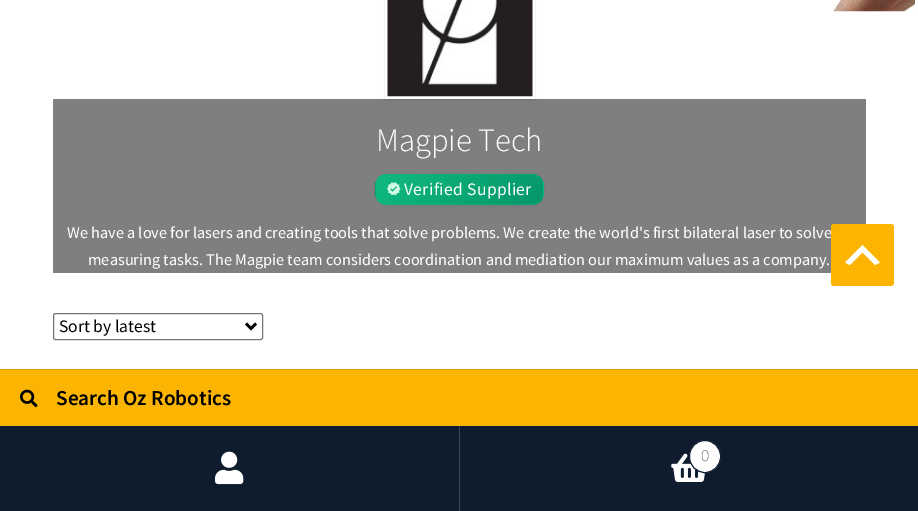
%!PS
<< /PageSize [918 511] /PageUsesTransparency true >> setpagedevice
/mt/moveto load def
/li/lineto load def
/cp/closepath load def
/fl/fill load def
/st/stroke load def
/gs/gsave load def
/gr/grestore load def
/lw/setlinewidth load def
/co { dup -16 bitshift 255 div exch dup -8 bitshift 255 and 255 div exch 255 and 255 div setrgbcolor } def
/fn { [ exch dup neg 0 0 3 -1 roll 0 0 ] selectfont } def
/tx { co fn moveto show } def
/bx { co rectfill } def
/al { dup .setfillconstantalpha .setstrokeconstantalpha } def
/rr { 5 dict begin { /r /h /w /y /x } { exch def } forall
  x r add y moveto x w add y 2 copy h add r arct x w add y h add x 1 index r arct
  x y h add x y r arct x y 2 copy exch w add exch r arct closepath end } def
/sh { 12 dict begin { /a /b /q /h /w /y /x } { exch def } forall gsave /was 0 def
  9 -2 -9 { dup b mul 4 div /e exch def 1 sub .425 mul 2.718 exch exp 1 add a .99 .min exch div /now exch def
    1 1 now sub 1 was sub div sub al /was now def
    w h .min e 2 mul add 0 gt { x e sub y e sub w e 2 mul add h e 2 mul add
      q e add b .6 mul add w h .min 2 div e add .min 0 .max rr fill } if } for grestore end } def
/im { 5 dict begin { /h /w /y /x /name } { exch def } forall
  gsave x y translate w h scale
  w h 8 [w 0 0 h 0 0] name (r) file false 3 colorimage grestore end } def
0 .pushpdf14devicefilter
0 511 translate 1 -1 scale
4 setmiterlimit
0 0 918 511 16#FFFFFF bx
(media/1.raw) 833 0 82 12 im
16#000000 co
385 -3 150 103 0 1 .12 sh
385 0 150 99 16#FFFFFF bx
(media/2.raw) 387 0 146 97 im
0.5 al
53 99 813 174 16#000000 bx
1 al
375 175 169 31 13 2 .1 sh
gs
375 174 169 31 13 rr clip newpath
gs 376 174 mt 543 174 li 543 175 li 376 175 li cp clip newpath
<< /ShadingType 2 /ColorSpace /DeviceRGB /Coords [411 112 508 209] /Extend [true true] /Function << /FunctionType 2 /Domain [0 1] /C0 [.063 .725 .506] /C1 [.02 .588 .412] /N 1 >> >> shfill gr
gs 375 175 mt 376 175 li 376 204 li 375 204 li cp clip newpath
<< /ShadingType 2 /ColorSpace /DeviceRGB /Coords [244 141 342 238] /Extend [true true] /Function << /FunctionType 2 /Domain [0 1] /C0 [.063 .725 .506] /C1 [.02 .588 .412] /N 1 >> >> shfill gr
gs 376 175 mt 543 175 li 543 204 li 376 204 li cp clip newpath
<< /ShadingType 2 /ColorSpace /DeviceRGB /Coords [411 141 508 238] /Extend [true true] /Function << /FunctionType 2 /Domain [0 1] /C0 [.063 .725 .506] /C1 [.02 .588 .412] /N 1 >> >> shfill gr
gs 543 175 mt 544 175 li 544 204 li 543 204 li cp clip newpath
<< /ShadingType 2 /ColorSpace /DeviceRGB /Coords [577 141 674 238] /Extend [true true] /Function << /FunctionType 2 /Domain [0 1] /C0 [.063 .725 .506] /C1 [.02 .588 .412] /N 1 >> >> shfill gr
gs 376 204 mt 543 204 li 543 205 li 376 205 li cp clip newpath
<< /ShadingType 2 /ColorSpace /DeviceRGB /Coords [411 169 508 267] /Extend [true true] /Function << /FunctionType 2 /Domain [0 1] /C0 [.063 .725 .506] /C1 [.02 .588 .412] /N 1 >> >> shfill gr
gr
0.3 al
16#10B981 co
375.5 174.5 168 30 12.5 rr st
1 al
(media/3.raw) 387 182 14 14 im
16#767676 co
53.5 313.5 209 26 2 rr st
16#000000 co
2.5 lw
246 323.5 mt 251 328.5 li 256 323.5 li st
0 426 459 85 16#0E1C2E bx
0 370 918 56 16#FBB402 bx
(media/4.raw) 20 389 18 19 im
0 369 918 1 16#DC9E02 bx
459 426 1 85 16#3E4958 bx
(media/5.raw) 215 451 29 34 im
460 426 458 85 16#0E1C2E bx
(media/6.raw) 671 453 34 29 im
16#FFFFFF co
689.5 440.5 31 32 15.5 rr gs fl gr
16#0E1C2E co
1 lw
st
(Magpie Tech) 376 151 /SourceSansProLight-Light 32.5 16#FFFFFF tx
/SourceSansPro-Regular 17.5 fn
404 195 mt .4 0 (Verified Supplier) ashow
(We have a love for lasers and creating tools that solve problems. We create the world's first bilateral laser to solve) 67 238 /SourceSansPro-Regular 16.25 16#FFFFFF tx
(measuring tasks. The Magpie team considers coordination and mediation our maximum values as a company.) 88 265 /SourceSansPro-Regular 16.25 16#FFFFFF tx
(Sort by latest) 59 332 /SourceSansPro-Regular 17.5 16#000000 tx
(Search Oz Robotics) 56 405 /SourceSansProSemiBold-SemiBold 21.25 16#000000 tx
(0) 701 461 /Roboto-Thin 15 16#0E1C2E tx
16#FBB402 co
831 224 63 62 3 rr fl
16#FFFFFF co
875 265 mt 862.5 252.5 li 850 265 li 845 262.5 li 862.5 245 li 880 262.5 li cp fl
.poppdf14devicefilter showpage
